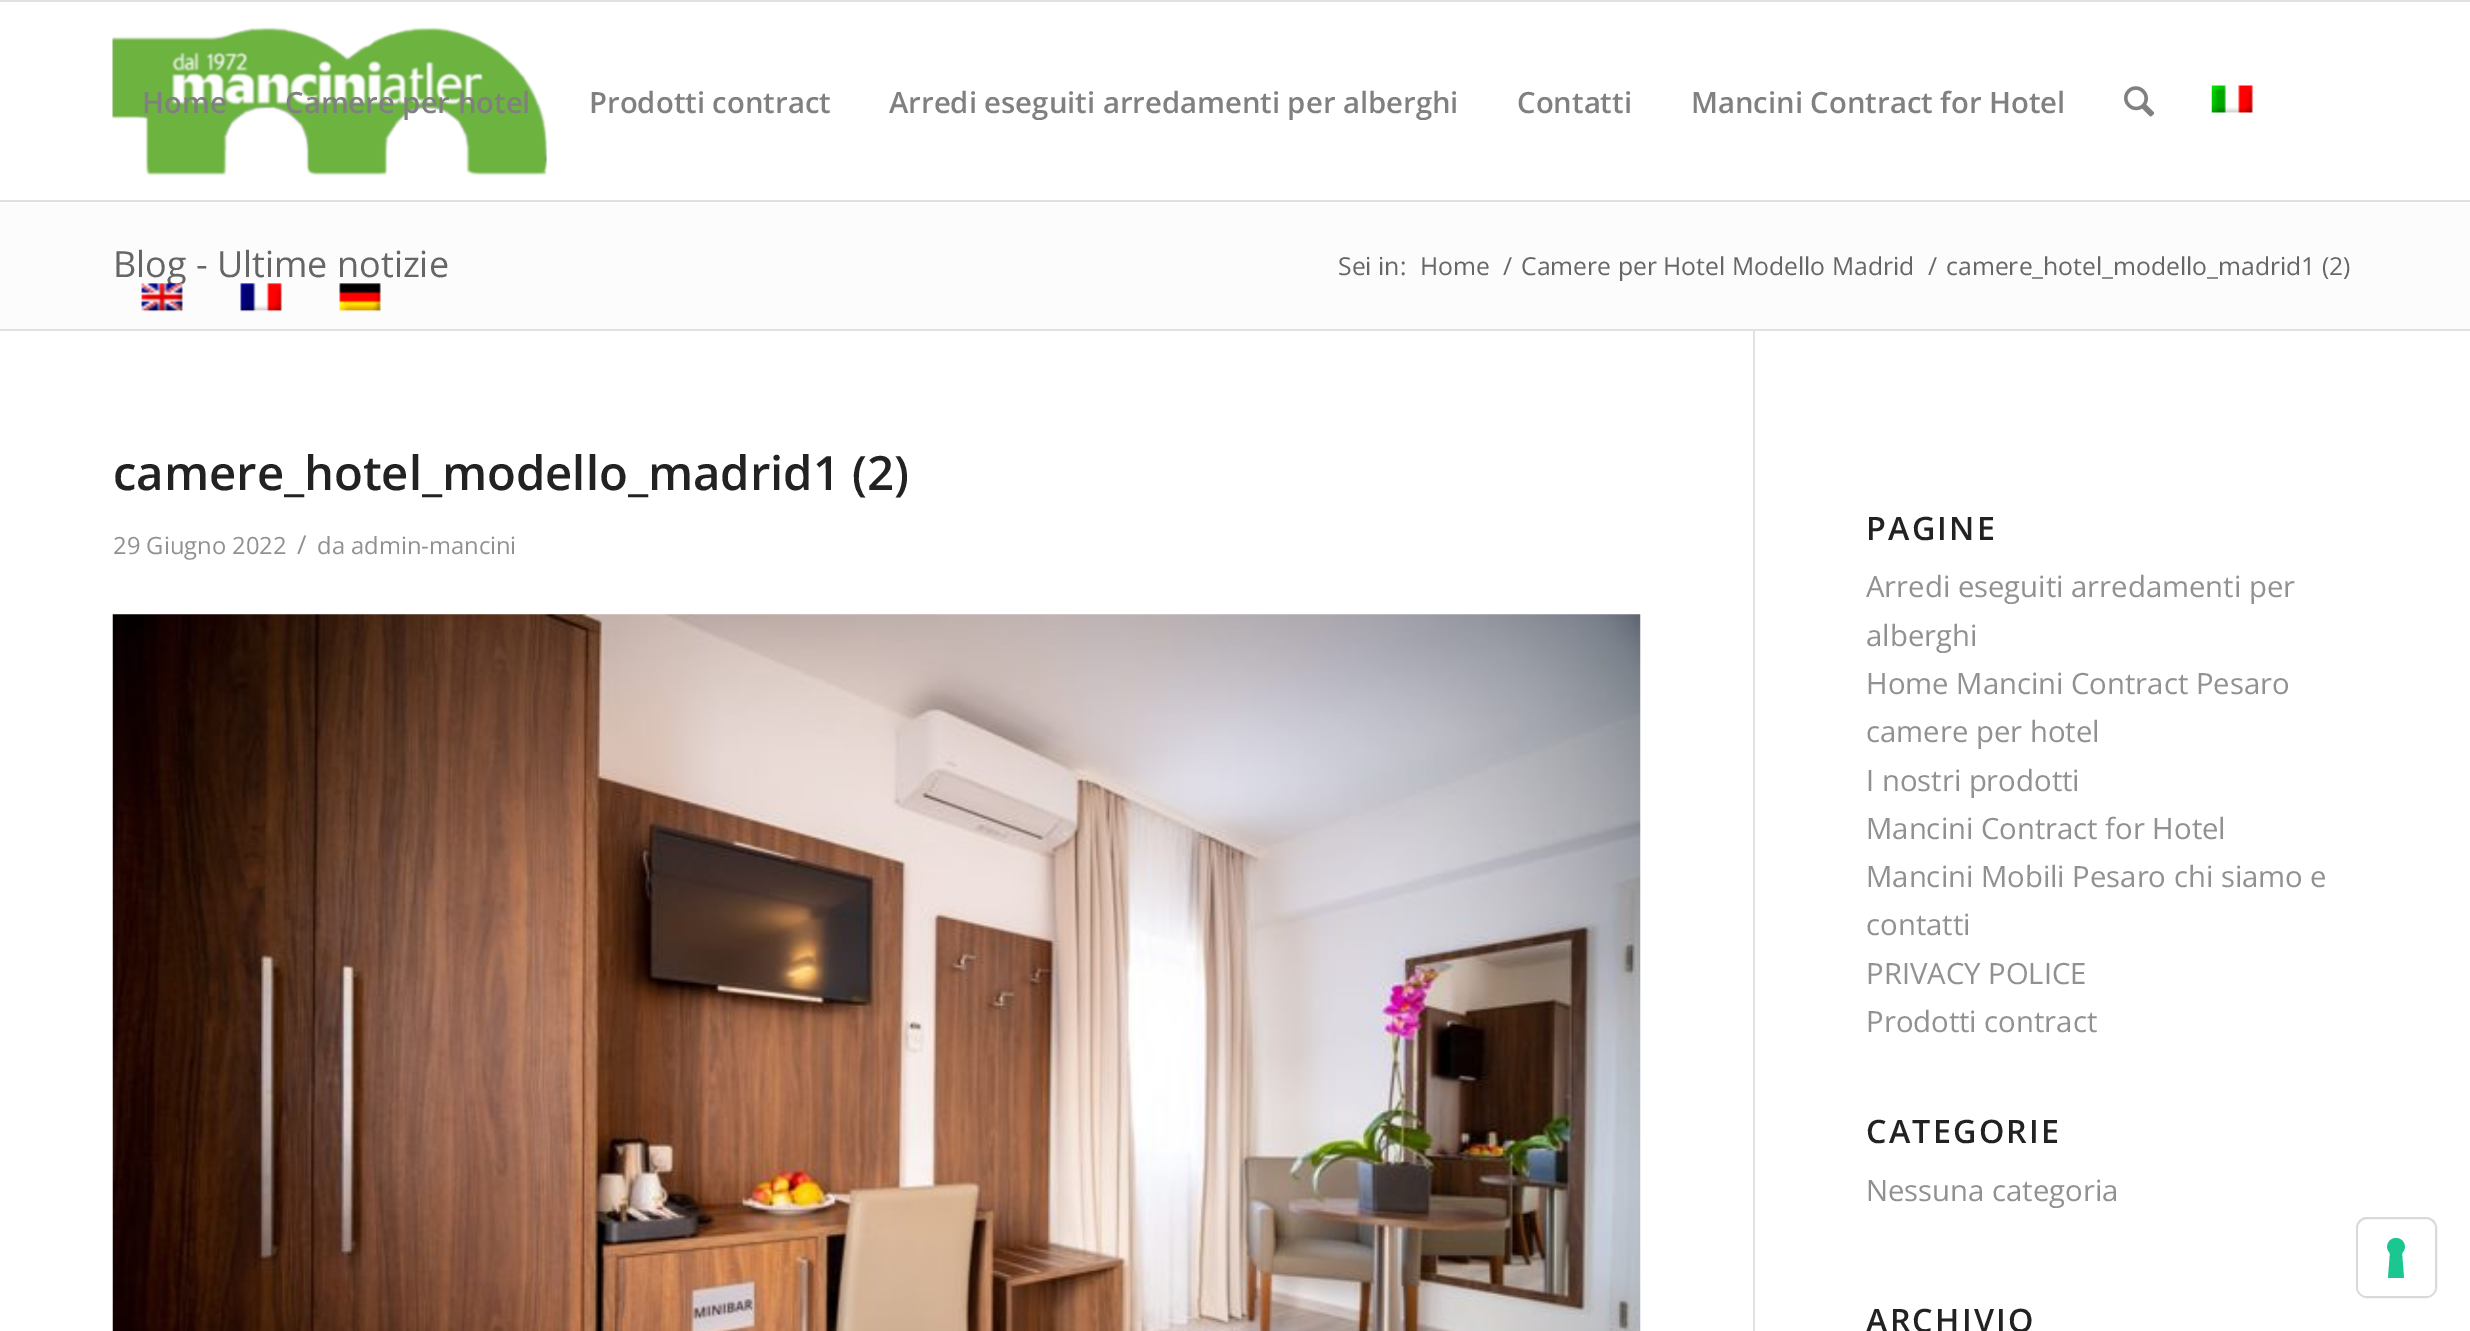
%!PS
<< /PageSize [2470 1331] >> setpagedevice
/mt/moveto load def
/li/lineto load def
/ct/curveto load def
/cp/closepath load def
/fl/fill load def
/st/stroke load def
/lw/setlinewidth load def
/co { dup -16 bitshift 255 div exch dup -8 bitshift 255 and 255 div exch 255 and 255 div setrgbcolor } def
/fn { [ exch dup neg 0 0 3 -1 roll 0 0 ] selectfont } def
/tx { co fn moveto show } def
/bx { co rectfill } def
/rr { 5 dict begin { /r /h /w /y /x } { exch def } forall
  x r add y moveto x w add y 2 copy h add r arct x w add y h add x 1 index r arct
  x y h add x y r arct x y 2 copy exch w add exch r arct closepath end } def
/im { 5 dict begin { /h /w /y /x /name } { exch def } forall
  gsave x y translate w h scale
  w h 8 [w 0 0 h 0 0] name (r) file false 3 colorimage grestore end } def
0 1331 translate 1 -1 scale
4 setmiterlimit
0 0 2470 1331 16#FFFFFF bx
0 0 2470 2 16#E1E1E1 bx
0 200 2470 2 16#E1E1E1 bx
(media/1.raw) 112 27 436 149 im
(media/2.raw) 2124 86 31 31 im
(media/3.raw) 2211 85 42 28 im
0 203 2470 126 16#FCFCFC bx
0 329 2470 2 16#E1E1E1 bx
1753 331 2 1000 16#E1E1E1 bx
(media/7.raw) 112 614 1529 717 im
16#D9D9D9 co
2 lw
2357 1218 79 79 10 rr st
16#FFFFFF co
2358 1220 77 76 9 rr fl
16#1CC691 co
2396 1238 mt 2404 1238 2408 1248 2402 1253 ct 2404 1278 li 2388 1278 li 2390 1253 li 2384 1248 2388 1238 2396 1238 ct cp eofill
(Home) 142 113 /OpenSans-SemiBold 29.25 16#808080 tx
(Camere per hotel) 285 113 /OpenSans-SemiBold 29.25 16#808080 tx
(Prodotti contract) 589 113 /OpenSans-SemiBold 29.25 16#808080 tx
(Arredi eseguiti arredamenti per alberghi) 889 113 /OpenSans-SemiBold 29.25 16#808080 tx
(Contatti) 1517 113 /OpenSans-SemiBold 29.25 16#808080 tx
(Mancini Contract for Hotel) 1691 113 /OpenSans-SemiBold 29.25 16#808080 tx
(Blog - Ultime notizie) 113 277 /OpenSans-Regular 36 16#666666 tx
(media/6.raw) 339 283 42 29 im
(media/5.raw) 240 283 42 29 im
(media/4.raw) 141 283 42 29 im
(Sei in:) 1338 275 /OpenSans-Regular 24.75 16#666666 tx
(Home) 1420 275 /OpenSans-Regular 24.75 16#666666 tx
(/) 1503 275 /OpenSans-Regular 24.75 16#666666 tx
(Camere per Hotel Modello Madrid) 1521 275 /OpenSans-Regular 24.75 16#666666 tx
(/) 1928 275 /OpenSans-Regular 24.75 16#666666 tx
(camere_hotel_modello_madrid1 \(2\)) 1946 275 /OpenSans-Regular 24.75 16#666666 tx
(camere_hotel_modello_madrid1 \(2\)) 113 490 /OpenSans-SemiBold 47.25 16#222222 tx
(29 Giugno 2022) 113 554 /OpenSans-Regular 23.75 16#919191 tx
(/) 297 554 /OpenSans-Regular 26 16#919191 tx
(da admin-mancini) 317 554 /OpenSans-Regular 23.75 16#919191 tx
/OpenSans-SemiBold 32.25 fn
16#222222 co
1866 540 mt 2.25 0 (PAGINE) ashow
(Arredi eseguiti arredamenti per) 1866 597 /OpenSans-Regular 29.25 16#919191 tx
(alberghi) 1866 646 /OpenSans-Regular 29.25 16#919191 tx
(Home Mancini Contract Pesaro) 1866 694 /OpenSans-Regular 29.25 16#919191 tx
(camere per hotel) 1866 742 /OpenSans-Regular 29.25 16#919191 tx
(I nostri prodotti) 1866 791 /OpenSans-Regular 29.25 16#919191 tx
(Mancini Contract for Hotel) 1866 839 /OpenSans-Regular 29.25 16#919191 tx
(Mancini Mobili Pesaro chi siamo e) 1866 887 /OpenSans-Regular 29.25 16#919191 tx
(contatti) 1866 935 /OpenSans-Regular 29.25 16#919191 tx
(PRIVACY POLICE) 1866 984 /OpenSans-Regular 29.25 16#919191 tx
(Prodotti contract) 1866 1032 /OpenSans-Regular 29.25 16#919191 tx
/OpenSans-SemiBold 32.25 fn
16#222222 co
1866 1143 mt 2.25 0 (CATEGORIE) ashow
(Nessuna categoria) 1866 1201 /OpenSans-Regular 29.25 16#919191 tx
/OpenSans-SemiBold 32.25 fn
16#222222 co
1866 1332 mt 2.25 0 (ARCHIVIO) ashow
showpage
